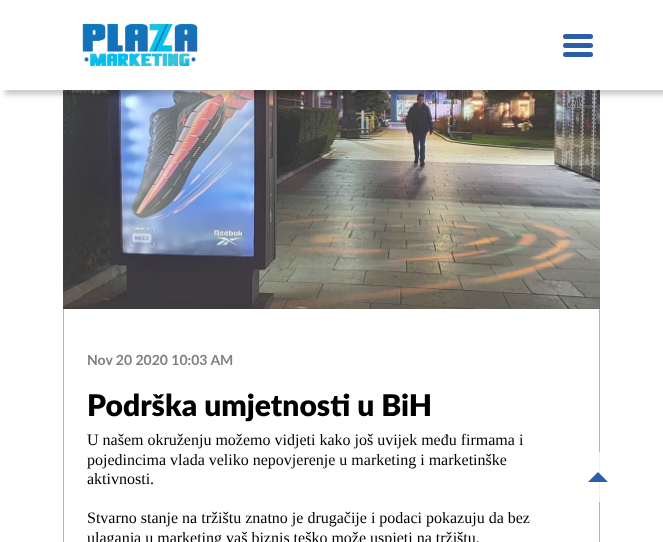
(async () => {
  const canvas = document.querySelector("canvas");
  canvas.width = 663;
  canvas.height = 542;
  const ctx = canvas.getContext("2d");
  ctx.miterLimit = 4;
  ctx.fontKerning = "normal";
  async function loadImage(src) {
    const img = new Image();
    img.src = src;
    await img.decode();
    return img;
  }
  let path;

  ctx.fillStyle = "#ffffff";
  ctx.fillRect(0, 0, 663, 542);
  ctx.drawImage(await loadImage("img/2.png"), 63, 90, 537, 219);
  ctx.fillStyle = "rgba(0, 0, 0, 0.2)";
  ctx.filter = "blur(2.5px)";
  ctx.beginPath();
  ctx.rect(5, 5, 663, 90);
  ctx.fill();
  ctx.filter = "none";
  ctx.fillStyle = "#ffffff";
  ctx.fillRect(1, 1, 662, 89);
  ctx.drawImage(await loadImage("img/1.png"), 82, 23, 116, 44);
  ctx.fillStyle = "#2a5eaa";
  ctx.beginPath();
  ctx.roundRect(563, 34, 30, 5, 2.5);
  ctx.fill();
  ctx.beginPath();
  ctx.roundRect(563, 43, 30, 5, 2.5);
  ctx.fill();
  ctx.beginPath();
  ctx.roundRect(563, 52, 30, 5, 2.5);
  ctx.fill();
  for (const [x, y, w, h, color] of [
    [599, 309, 1, 233, "#b3b3b3"],
    [599, 452, 1, 50, "#f0f0f0"],
    [63, 309, 1, 233, "#b3b3b3"],
  ]) {
    ctx.fillStyle = color;
    ctx.fillRect(x, y, w, h);
  }
  ctx.fillStyle = "#2a5eaa";
  path = new Path2D("M608 482H588L598 472Z");
  ctx.fill(path);
  ctx.font = "bold 14px Lato";
  ctx.fillStyle = "#808080";
  ctx.fillText("Nov 20 2020 10:03 AM", 87, 365);
  ctx.font = "900 30px Lato";
  ctx.fillStyle = "#000000";
  ctx.fillText("Podrška umjetnosti u BiH", 87, 416);
  ctx.font = "16px Liberation Serif";
  for (const [text, x, y] of [
    ["U našem okruženju možemo vidjeti kako još uvijek među firmama i", 87, 445],
    ["pojedincima vlada veliko nepovjerenje u marketing i marketinške", 87, 465],
    ["aktivnosti.", 87, 484],
    ["Stvarno stanje na tržištu znatno je drugačije i podaci pokazuju da bez", 87, 523],
    ["ulaganja u marketing vaš biznis teško može uspjeti na tržištu.", 87, 543],
  ]) {
    ctx.fillText(text, x, y);
  }
})();
